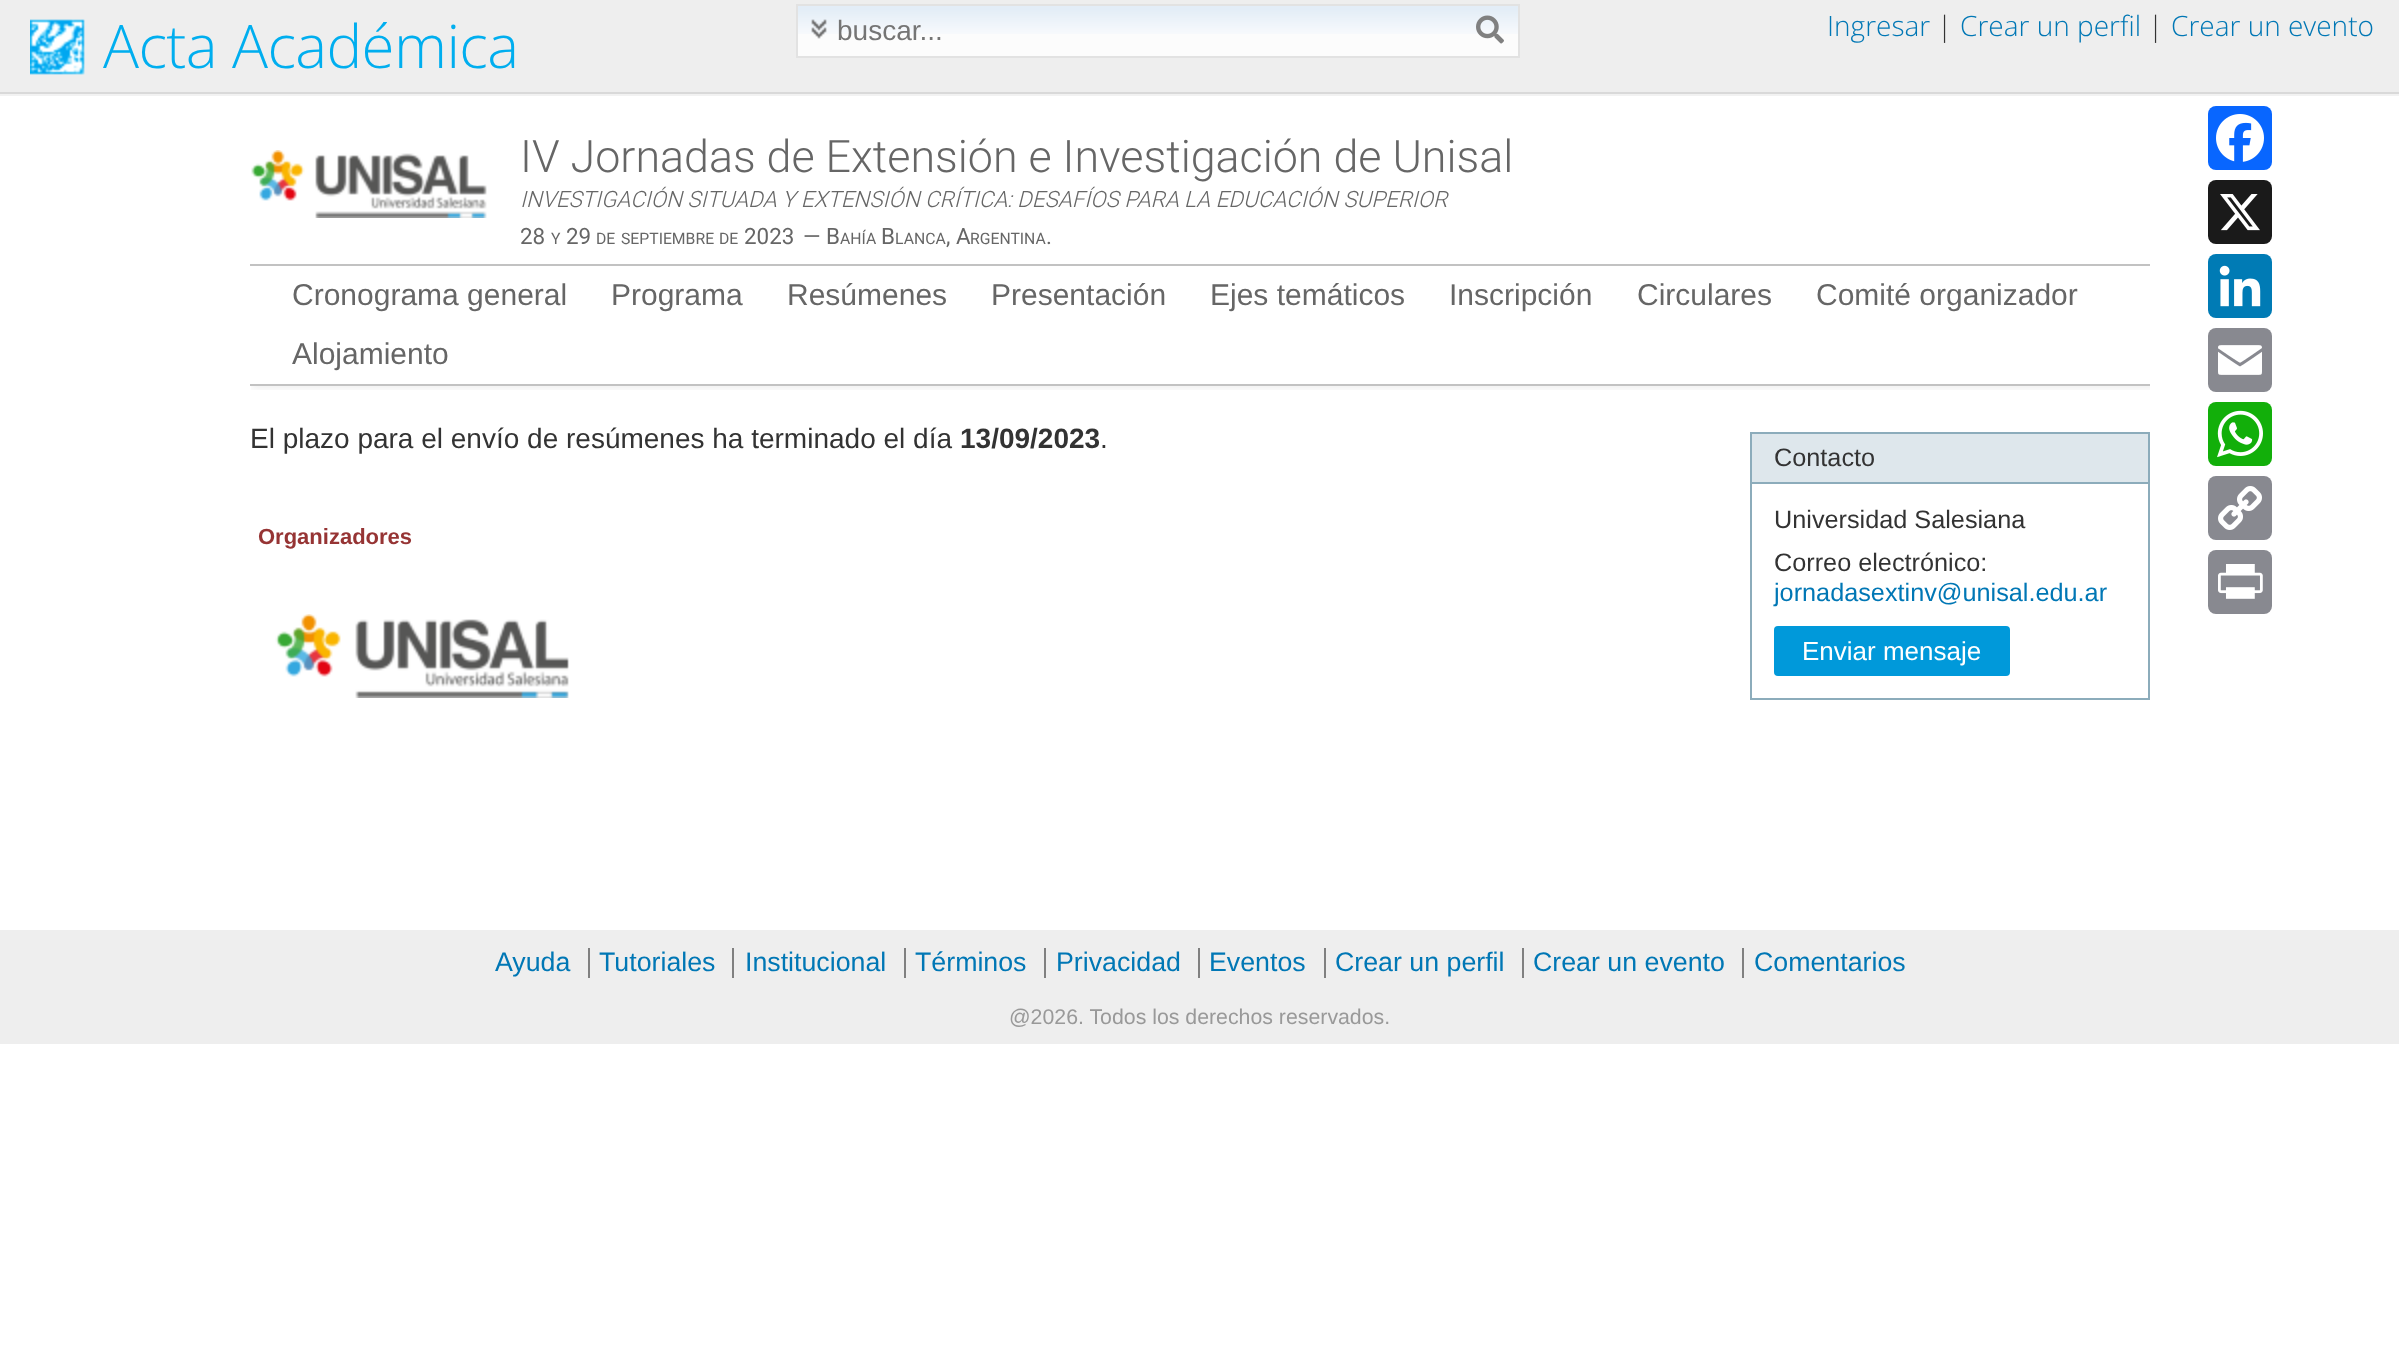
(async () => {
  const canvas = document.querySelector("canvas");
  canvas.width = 2399;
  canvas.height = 1345;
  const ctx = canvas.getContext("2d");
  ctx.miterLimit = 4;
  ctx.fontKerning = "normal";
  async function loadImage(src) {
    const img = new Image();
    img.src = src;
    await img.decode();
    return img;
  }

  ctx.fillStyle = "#ffffff";
  ctx.fillRect(0, 0, 2399, 1345);
  for (const [x, y, w, h, color] of [
    [0, 94, 2399, 2, "#f2f2f2"],
    [0, 92, 2399, 2, "#d9d9d9"],
    [0, 0, 2399, 92, "#eeeeee"],
  ]) {
    ctx.fillStyle = color;
    ctx.fillRect(x, y, w, h);
  }
  ctx.drawImage(await loadImage("img/1.png"), 30, 19, 55, 56);
  ctx.fillStyle = "#fcfcfc";
  ctx.fillRect(798, 34, 720, 22);
  ctx.drawImage(await loadImage("img/3.png"), 798, 6, 720, 28);
  ctx.strokeStyle = "#e2e2e2";
  ctx.lineWidth = 2;
  ctx.strokeRect(797, 5, 722, 52);
  ctx.drawImage(await loadImage("img/2.png"), 811, 19, 16, 20);
  ctx.drawImage(await loadImage("img/4.png"), 1476, 15, 28, 29);
  ctx.drawImage(await loadImage("img/5.png"), 251, 150, 236, 68);
  ctx.save();
  ctx.beginPath();
  ctx.rect(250, 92, 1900, 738);
  ctx.clip();
  ctx.beginPath();
  ctx.rect(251, 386, 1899, 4);
  ctx.clip();
  ctx.fillStyle = "rgba(0, 0, 0, 0.07)";
  ctx.filter = "blur(4px)";
  ctx.beginPath();
  ctx.rect(252, 266, 1942, 122);
  ctx.fill();
  ctx.filter = "none";
  ctx.restore();
  ctx.fillStyle = "#c2c2c2";
  ctx.fillRect(250, 264, 1900, 2);
  ctx.fillRect(250, 384, 1900, 2);
  ctx.drawImage(await loadImage("img/6.png"), 275, 614, 294, 84);
  ctx.fillStyle = "#8cacbb";
  ctx.fillRect(1750, 698, 400, 2);
  ctx.fillStyle = "#dee7ec";
  ctx.beginPath();
  ctx.rect(1751, 433, 398, 50);
  ctx.fill();
  ctx.strokeStyle = "#8cacbb";
  ctx.stroke();
  ctx.fillStyle = "#8cacbb";
  ctx.fillRect(2148, 484, 2, 214);
  ctx.fillRect(1750, 484, 2, 214);
  ctx.fillStyle = "#0099da";
  ctx.beginPath();
  ctx.roundRect(1774, 626, 236, 50, 4);
  ctx.fill();
  ctx.fillStyle = "#0866ff";
  ctx.beginPath();
  ctx.roundRect(2208, 106, 64, 64, 8);
  ctx.fill();
  ctx.drawImage(await loadImage("img/7.png"), 2216, 114, 48, 48);
  ctx.fillStyle = "#1a1a1a";
  ctx.beginPath();
  ctx.roundRect(2208, 180, 64, 64, 8);
  ctx.fill();
  ctx.drawImage(await loadImage("img/8.png"), 2220, 194, 40, 37);
  ctx.fillStyle = "#007bb5";
  ctx.beginPath();
  ctx.roundRect(2208, 254, 64, 64, 8);
  ctx.fill();
  ctx.drawImage(await loadImage("img/9.png"), 2219, 265, 42, 42);
  ctx.fillStyle = "#888990";
  ctx.beginPath();
  ctx.roundRect(2208, 328, 64, 64, 8);
  ctx.fill();
  ctx.drawImage(await loadImage("img/10.png"), 2218, 345, 44, 30);
  ctx.fillStyle = "#12af0a";
  ctx.beginPath();
  ctx.roundRect(2208, 402, 64, 64, 8);
  ctx.fill();
  ctx.drawImage(await loadImage("img/11.png"), 2217, 410, 46, 48);
  ctx.fillStyle = "#888990";
  ctx.beginPath();
  ctx.roundRect(2208, 476, 64, 64, 8);
  ctx.fill();
  ctx.drawImage(await loadImage("img/12.png"), 2218, 486, 44, 44);
  ctx.beginPath();
  ctx.roundRect(2208, 550, 64, 64, 8);
  ctx.fill();
  ctx.drawImage(await loadImage("img/13.png"), 2218, 564, 45, 35);
  for (const [x, y, w, h, color] of [
    [0, 930, 2399, 114, "#eeeeee"],
    [588, 948, 2, 30, "#808080"],
    [732, 948, 2, 30, "#808080"],
    [904, 948, 2, 30, "#808080"],
    [1044, 948, 2, 30, "#808080"],
    [1198, 948, 2, 30, "#808080"],
    [1324, 948, 2, 30, "#808080"],
    [1522, 948, 2, 30, "#808080"],
    [1742, 948, 2, 30, "#808080"],
  ]) {
    ctx.fillStyle = color;
    ctx.fillRect(x, y, w, h);
  }
  ctx.letterSpacing = "-0.6px";
  ctx.font = "300 60px Open Sans";
  ctx.fillStyle = "#00aeef";
  ctx.fillText("Acta Académica", 103, 68);
  ctx.letterSpacing = "0px";
  ctx.font = "28px Liberation Sans";
  ctx.fillStyle = "#757575";
  ctx.fillText("buscar...", 837, 40);
  ctx.font = "300 28px Open Sans";
  ctx.fillStyle = "#0077b5";
  ctx.fillText("Ingresar", 1827, 36);
  ctx.fillStyle = "#333333";
  ctx.fillText("|", 1937, 36);
  ctx.fillStyle = "#0077b5";
  ctx.fillText("Crear un perfil", 1960, 36);
  ctx.fillStyle = "#333333";
  ctx.fillText("|", 2148, 36);
  ctx.fillStyle = "#0077b5";
  ctx.fillText("Crear un evento", 2171, 36);
  ctx.font = "300 44.8px Roboto";
  ctx.fillStyle = "#666666";
  ctx.fillText("IV Jornadas de Extensión e Investigación de Unisal", 520, 172);
  ctx.font = "italic 300 22.4px Roboto";
  ctx.fillText("INVESTIGACIÓN SITUADA Y EXTENSIÓN CRÍTICA:", 520, 207);
  ctx.fillText("DESAFÍOS PARA LA EDUCACIÓN SUPERIOR", 1017, 207);
  ctx.font = "22.4px Roboto";
  ctx.fillText("28", 520, 244);
  ctx.font = "15.75px Roboto";
  ctx.fillText("Y", 551, 244);
  ctx.font = "22.4px Roboto";
  ctx.fillText("29", 566, 244);
  ctx.font = "15.75px Roboto";
  for (const [text, x, y] of [
    ["DE", 596, 244],
    ["SEPTIEMBRE", 621, 244],
    ["DE", 719, 244],
  ]) {
    ctx.fillText(text, x, y);
  }
  ctx.font = "22.4px Roboto";
  ctx.fillText("2023", 744, 244);
  ctx.fillText("— B", 803, 244);
  ctx.font = "15.75px Roboto";
  ctx.fillText("AHÍA", 840, 244);
  ctx.font = "22.4px Roboto";
  ctx.fillText("B", 881, 244);
  ctx.font = "15.75px Roboto";
  ctx.fillText("LANCA", 895, 244);
  ctx.font = "22.4px Roboto";
  ctx.fillText(", A", 946, 244);
  ctx.font = "15.75px Roboto";
  ctx.fillText("RGENTINA", 970, 244);
  ctx.font = "22.4px Roboto";
  ctx.fillText(".", 1046, 244);
  ctx.font = "30px Liberation Sans";
  for (const [text, x, y] of [
    ["Cronograma general", 292, 305],
    ["Programa", 611, 305],
    ["Resúmenes", 787, 305],
    ["Presentación", 991, 305],
    ["Ejes temáticos", 1210, 305],
    ["Inscripción", 1449, 305],
    ["Circulares", 1637, 305],
    ["Comité organizador", 1816, 305],
    ["Alojamiento", 292, 364],
  ]) {
    ctx.fillText(text, x, y);
  }
  ctx.font = "28px Liberation Sans";
  ctx.fillStyle = "#333333";
  ctx.fillText("El plazo para el envío de resúmenes ha terminado el día", 250, 448);
  ctx.font = "bold 28px Liberation Sans";
  ctx.fillText("13/09/2023", 960, 448);
  ctx.font = "28px Liberation Sans";
  ctx.fillText(".", 1100, 448);
  ctx.font = "bold 22px Liberation Sans";
  ctx.fillStyle = "#963434";
  ctx.fillText("Organizadores", 258, 544);
  ctx.font = "25.25px Liberation Sans";
  ctx.fillStyle = "#333333";
  for (const [text, x, y] of [
    ["Contacto", 1774, 466],
    ["Universidad Salesiana", 1774, 528],
    ["Correo electrónico:", 1774, 571],
  ]) {
    ctx.fillText(text, x, y);
  }
  ctx.fillStyle = "#0077b5";
  ctx.fillText("jornadasextinv@unisal.edu.ar", 1774, 601);
  ctx.font = "26px Liberation Sans";
  ctx.fillStyle = "#ffffff";
  ctx.fillText("Enviar mensaje", 1802, 660);
  ctx.font = "26.75px Liberation Sans";
  ctx.fillStyle = "#0077b5";
  for (const [text, x, y] of [
    ["Ayuda", 495, 971],
    ["Tutoriales", 599, 971],
    ["Institucional", 745, 971],
    ["Términos", 915, 971],
    ["Privacidad", 1056, 971],
    ["Eventos", 1209, 971],
    ["Crear un perfil", 1335, 971],
    ["Crear un evento", 1533, 971],
    ["Comentarios", 1754, 971],
  ]) {
    ctx.fillText(text, x, y);
  }
  ctx.font = "21.3px Liberation Sans";
  ctx.fillStyle = "#999999";
  ctx.fillText("@2026. Todos los derechos reservados.", 1009, 1024);
})();
